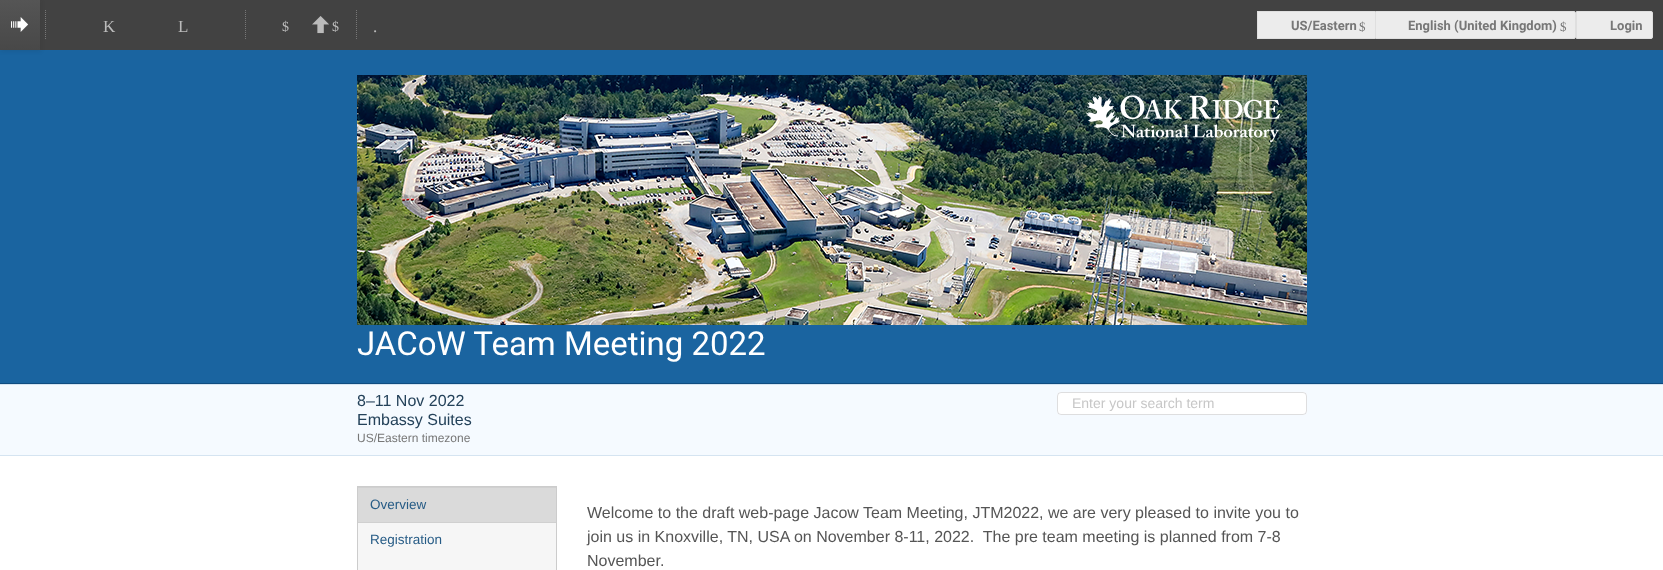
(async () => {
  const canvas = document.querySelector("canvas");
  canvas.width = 1663;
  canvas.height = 570;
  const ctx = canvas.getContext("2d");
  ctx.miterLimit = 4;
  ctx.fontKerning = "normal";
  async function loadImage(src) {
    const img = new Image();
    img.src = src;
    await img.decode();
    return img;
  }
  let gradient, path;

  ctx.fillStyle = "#ffffff";
  ctx.fillRect(0, 0, 1663, 570);
  ctx.fillStyle = "#424242";
  ctx.fillRect(40, 0, 1623, 50);
  ctx.fillStyle = "#1a64a0";
  ctx.fillRect(0, 50, 1663, 333);
  ctx.fillStyle = "rgba(20, 20, 20, 0.1)";
  ctx.filter = "blur(2px)";
  ctx.beginPath();
  ctx.rect(1, 1, 40, 50);
  ctx.fill();
  ctx.filter = "none";
  gradient = ctx.createLinearGradient(20, 0, 20, 50);
  gradient.addColorStop(0, "#555555");
  gradient.addColorStop(1, "#484848");
  ctx.fillStyle = gradient;
  ctx.fillRect(0, 0, 40, 50);
  ctx.drawImage(await loadImage("img/1.png"), 11, 17, 18, 15);
  path = new Path2D("M45.5 10V40");
  ctx.strokeStyle = "#777777";
  ctx.setLineDash([1, 1]);
  ctx.stroke(path);
  path = new Path2D("M245.5 10V40");
  ctx.stroke(path);
  ctx.drawImage(await loadImage("img/2.png"), 312, 16, 17, 18);
  path = new Path2D("M356.5 10V40");
  ctx.stroke(path);
  for (const [x, y, w, h, color] of [
    [1258, 12, 117, 26, "#ececec"],
    [1257, 11, 118, 1, "#dfdfdf"],
    [1257, 38, 118, 1, "#dfdfdf"],
    [1257, 11, 1, 28, "#dfdfdf"],
  ]) {
    ctx.fillStyle = color;
    ctx.fillRect(x, y, w, h);
  }
  ctx.fillStyle = "#ececec";
  ctx.beginPath();
  ctx.roundRect(1375.5, 11.5, 200, 27, [0, 1.5, 1.5, 0]);
  ctx.fill();
  ctx.strokeStyle = "#dfdfdf";
  ctx.setLineDash([]);
  ctx.stroke();
  ctx.beginPath();
  ctx.roundRect(1576.5, 11.5, 76, 27, [0, 1.5, 1.5, 0]);
  ctx.fill();
  ctx.stroke();
  ctx.fillStyle = "#0f4c80";
  ctx.fillRect(0, 383, 1663, 1);
  ctx.drawImage(await loadImage("img/3.png"), 357, 75, 950, 250);
  for (const [x, y, w, h, color] of [
    [0, 385, 1663, 70, "#f5faff"],
    [0, 384, 1663, 1, "#d5e4f1"],
    [0, 455, 1663, 1, "#d5e4f1"],
  ]) {
    ctx.fillStyle = color;
    ctx.fillRect(x, y, w, h);
  }
  ctx.fillStyle = "#ffffff";
  ctx.beginPath();
  ctx.roundRect(1057, 392, 250, 23, 4);
  ctx.fill();
  ctx.beginPath();
  ctx.roundRect(1057.5, 392.5, 249, 22, 3.5);
  ctx.strokeStyle = "rgba(34, 36, 38, 0.15)";
  ctx.stroke();
  ctx.fillStyle = "#f6f6f6";
  ctx.fillRect(358, 523, 198, 47);
  ctx.strokeStyle = "#cccccc";
  ctx.strokeRect(357.5, 486.5, 199, 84);
  for (const [x, y, w, h, color] of [
    [358, 488, 198, 34, "#dadada"],
    [358, 487, 198, 1, "#d0d0d0"],
    [358, 522, 198, 1, "#d0d0d0"],
  ]) {
    ctx.fillStyle = color;
    ctx.fillRect(x, y, w, h);
  }
  ctx.font = "17px Liberation Serif";
  ctx.fillStyle = "#bbbbbb";
  ctx.fillText("K", 103, 32);
  ctx.fillText("L", 178, 32);
  ctx.font = "14px Liberation Serif";
  ctx.fillText("$", 282, 31);
  ctx.fillText("$", 332, 31);
  ctx.font = "17px Liberation Serif";
  ctx.fillText(".", 373, 32);
  ctx.font = "bold 13px Roboto";
  ctx.fillStyle = "#777777";
  ctx.fillText("US/Eastern", 1291, 30);
  ctx.font = "13px Liberation Serif";
  ctx.fillText("$", 1359, 31);
  ctx.font = "bold 13px Roboto";
  ctx.fillText("English (United Kingdom)", 1408, 30);
  ctx.font = "13px Liberation Serif";
  ctx.fillText("$", 1560, 31);
  ctx.font = "bold 13px Roboto";
  ctx.fillText("Login", 1610, 30);
  ctx.font = "33px Roboto";
  ctx.fillStyle = "#ffffff";
  ctx.fillText("JACoW Team Meeting 2022", 357, 355);
  ctx.font = "16px 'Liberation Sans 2'";
  ctx.fillStyle = "#24425a";
  ctx.fillText("8–11 Nov 2022", 357, 406);
  ctx.fillText("Embassy Suites", 357, 425);
  ctx.font = "12px 'Liberation Sans 2'";
  ctx.fillStyle = "#777777";
  ctx.fillText("US/Eastern timezone", 357, 442);
  ctx.font = "14px Liberation Sans";
  ctx.fillStyle = "#c7c7c7";
  ctx.fillText("Enter your search term", 1072, 408);
  ctx.font = "13.5px Liberation Sans";
  ctx.fillStyle = "#275c86";
  ctx.fillText("Overview", 370, 509);
  ctx.fillText("Registration", 370, 544);
  ctx.font = "16px Liberation Sans";
  ctx.fillStyle = "#555555";
  for (const [text, x, y] of [
    ["Welcome to the draft web-page Jacow Team Meeting, JTM2022, we are very pleased to invite you to", 587, 518],
    ["join us in Knoxville, TN, USA on November 8-11, 2022.  The pre team meeting is planned from 7-8", 587, 542],
    ["November.", 587, 566],
  ]) {
    ctx.fillText(text, x, y);
  }
})();
